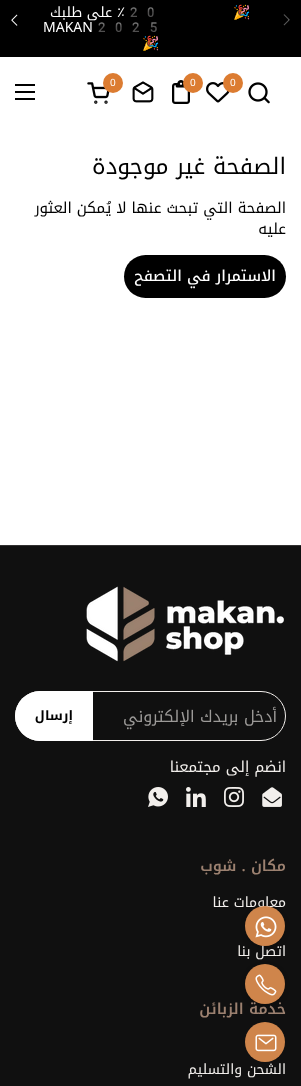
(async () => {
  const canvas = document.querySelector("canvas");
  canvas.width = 301;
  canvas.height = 1086;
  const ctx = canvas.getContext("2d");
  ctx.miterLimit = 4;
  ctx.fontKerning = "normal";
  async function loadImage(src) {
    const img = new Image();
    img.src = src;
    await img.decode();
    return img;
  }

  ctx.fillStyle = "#ffffff";
  ctx.fillRect(0, 0, 301, 1086);
  ctx.fillStyle = "#000000";
  ctx.fillRect(0, 0, 301, 57);
  ctx.drawImage(await loadImage("img/1.png"), 283, 14, 7, 12);
  ctx.drawImage(await loadImage("img/2.png"), 11, 14, 7, 12);
  ctx.drawImage(await loadImage("img/3.png"), 248, 82, 22, 22);
  ctx.drawImage(await loadImage("img/4.png"), 206, 82, 24, 21);
  ctx.fillStyle = "#dc7c31";
  ctx.beginPath();
  ctx.arc(233, 83, 10, 0, Math.PI * 2);
  ctx.fill();
  ctx.drawImage(await loadImage("img/5.png"), 172, 80, 18, 24);
  ctx.beginPath();
  ctx.arc(193, 83, 10, 0, Math.PI * 2);
  ctx.fill();
  ctx.drawImage(await loadImage("img/6.png"), 132, 81, 22, 22);
  ctx.drawImage(await loadImage("img/7.png"), 87, 82, 23, 22);
  ctx.beginPath();
  ctx.arc(113, 83, 10, 0, Math.PI * 2);
  ctx.fill();
  for (const [x, y, w, h, color] of [
    [15, 84, 20, 2, "#000000"],
    [15, 91, 20, 2, "#000000"],
    [15, 98, 20, 2, "#000000"],
  ]) {
    ctx.fillStyle = color;
    ctx.fillRect(x, y, w, h);
  }
  ctx.beginPath();
  ctx.roundRect(124, 255, 162, 43, 21.5);
  ctx.fill();
  ctx.fillStyle = "#101010";
  ctx.fillRect(0, 546, 301, 540);
  ctx.fillStyle = "#323131";
  ctx.fillRect(0, 545, 301, 1);
  ctx.drawImage(await loadImage("img/8.png"), 86, 586, 198, 76);
  ctx.beginPath();
  ctx.roundRect(15.5, 691.5, 270, 49, 24.5);
  ctx.strokeStyle = "#f2efec";
  ctx.stroke();
  ctx.fillStyle = "#ffffff";
  ctx.beginPath();
  ctx.roundRect(15, 691, 78, 50, [25, 0, 0, 25]);
  ctx.fill();
  ctx.drawImage(await loadImage("img/9.png"), 262, 787, 20, 20);
  ctx.drawImage(await loadImage("img/10.png"), 224, 787, 20, 20);
  ctx.drawImage(await loadImage("img/11.png"), 186, 787, 20, 20);
  ctx.drawImage(await loadImage("img/12.png"), 148, 787, 20, 20);
  ctx.fillStyle = "rgba(0, 0, 0, 0.2)";
  ctx.filter = "blur(2.5px)";
  ctx.beginPath();
  ctx.roundRect(245, 908, 40, 40, 20);
  ctx.fill();
  ctx.filter = "none";
  ctx.filter = "blur(2.5px)";
  ctx.beginPath();
  ctx.roundRect(245, 966, 40, 40, 20);
  ctx.fill();
  ctx.filter = "none";
  ctx.fillStyle = "#cf854b";
  ctx.beginPath();
  ctx.arc(265, 1042, 20, 0, Math.PI * 2);
  ctx.fill();
  ctx.drawImage(await loadImage("img/15.png"), 255, 1034, 22, 18);
  ctx.direction = "rtl";
  ctx.font = "14px Noto Color Emoji";
  ctx.fillStyle = "#ffffff";
  ctx.fillText("🎉", 251, 17);
  ctx.direction = "ltr";
  ctx.fillText("20", 125, 17);
  ctx.direction = "rtl";
  ctx.font = "14px Noto Kufi Arabic";
  ctx.fillText("٪ على طلبك", 125, 17);
  ctx.direction = "ltr";
  ctx.font = "14px Noto Color Emoji";
  ctx.fillText("2025", 93, 32);
  ctx.font = "14px Noto Kufi Arabic";
  ctx.fillText("MAKAN", 43, 32);
  ctx.font = "14px Noto Color Emoji";
  ctx.fillText("🎉", 142, 48);
  ctx.font = "10px Noto Kufi Arabic";
  for (const [text, x, y] of [
    ["0", 230, 86],
    ["0", 190, 86],
    ["0", 110, 86],
  ]) {
    ctx.fillText(text, x, y);
  }
  ctx.direction = "rtl";
  ctx.font = "22.75px Noto Kufi Arabic";
  ctx.fillStyle = "#000000";
  ctx.fillText("الصفحة غير موجودة", 286, 174);
  ctx.font = "15px Noto Kufi Arabic";
  ctx.fillText("الصفحة التي تبحث عنها لا يُمكن العثور", 286, 213);
  ctx.fillText("عليه", 286, 234);
  ctx.font = "500 15px Noto Kufi Arabic";
  ctx.fillStyle = "#ffffff";
  ctx.fillText("الاستمرار في التصفح", 276, 281);
  ctx.font = "16px Noto Kufi Arabic";
  ctx.fillStyle = "#9c9a98";
  ctx.fillText("أدخل بريدك الإلكتروني", 277, 722);
  ctx.font = "bold 13px Noto Kufi Arabic";
  ctx.fillStyle = "#000000";
  ctx.fillText("إرسال", 73, 720);
  ctx.font = "15px Noto Kufi Arabic";
  ctx.fillStyle = "#f2efec";
  ctx.fillText("انضم إلى مجتمعنا", 286, 772);
  ctx.font = "600 15px Noto Kufi Arabic";
  ctx.fillStyle = "#9c8170";
  ctx.fillText("مكان . شوب", 286, 871);
  ctx.font = "14px Noto Kufi Arabic";
  ctx.fillStyle = "#f2efec";
  ctx.fillText("معلومات عنا", 286, 907);
  ctx.fillText("اتصل بنا", 286, 956);
  ctx.font = "600 15px Noto Kufi Arabic";
  ctx.fillStyle = "#9c8170";
  ctx.fillText("خدمة الزبائن", 286, 1014);
  ctx.font = "14px Noto Kufi Arabic";
  ctx.fillStyle = "#f2efec";
  ctx.fillText("الشحن والتسليم", 286, 1074);
  ctx.fillStyle = "#cf854b";
  ctx.beginPath();
  ctx.arc(265, 926, 20, 0, Math.PI * 2);
  ctx.fill();
  ctx.drawImage(await loadImage("img/13.png"), 255, 916, 22, 22);
  ctx.beginPath();
  ctx.arc(265, 984, 20, 0, Math.PI * 2);
  ctx.fill();
  ctx.drawImage(await loadImage("img/14.png"), 255, 974, 22, 22);
})();
